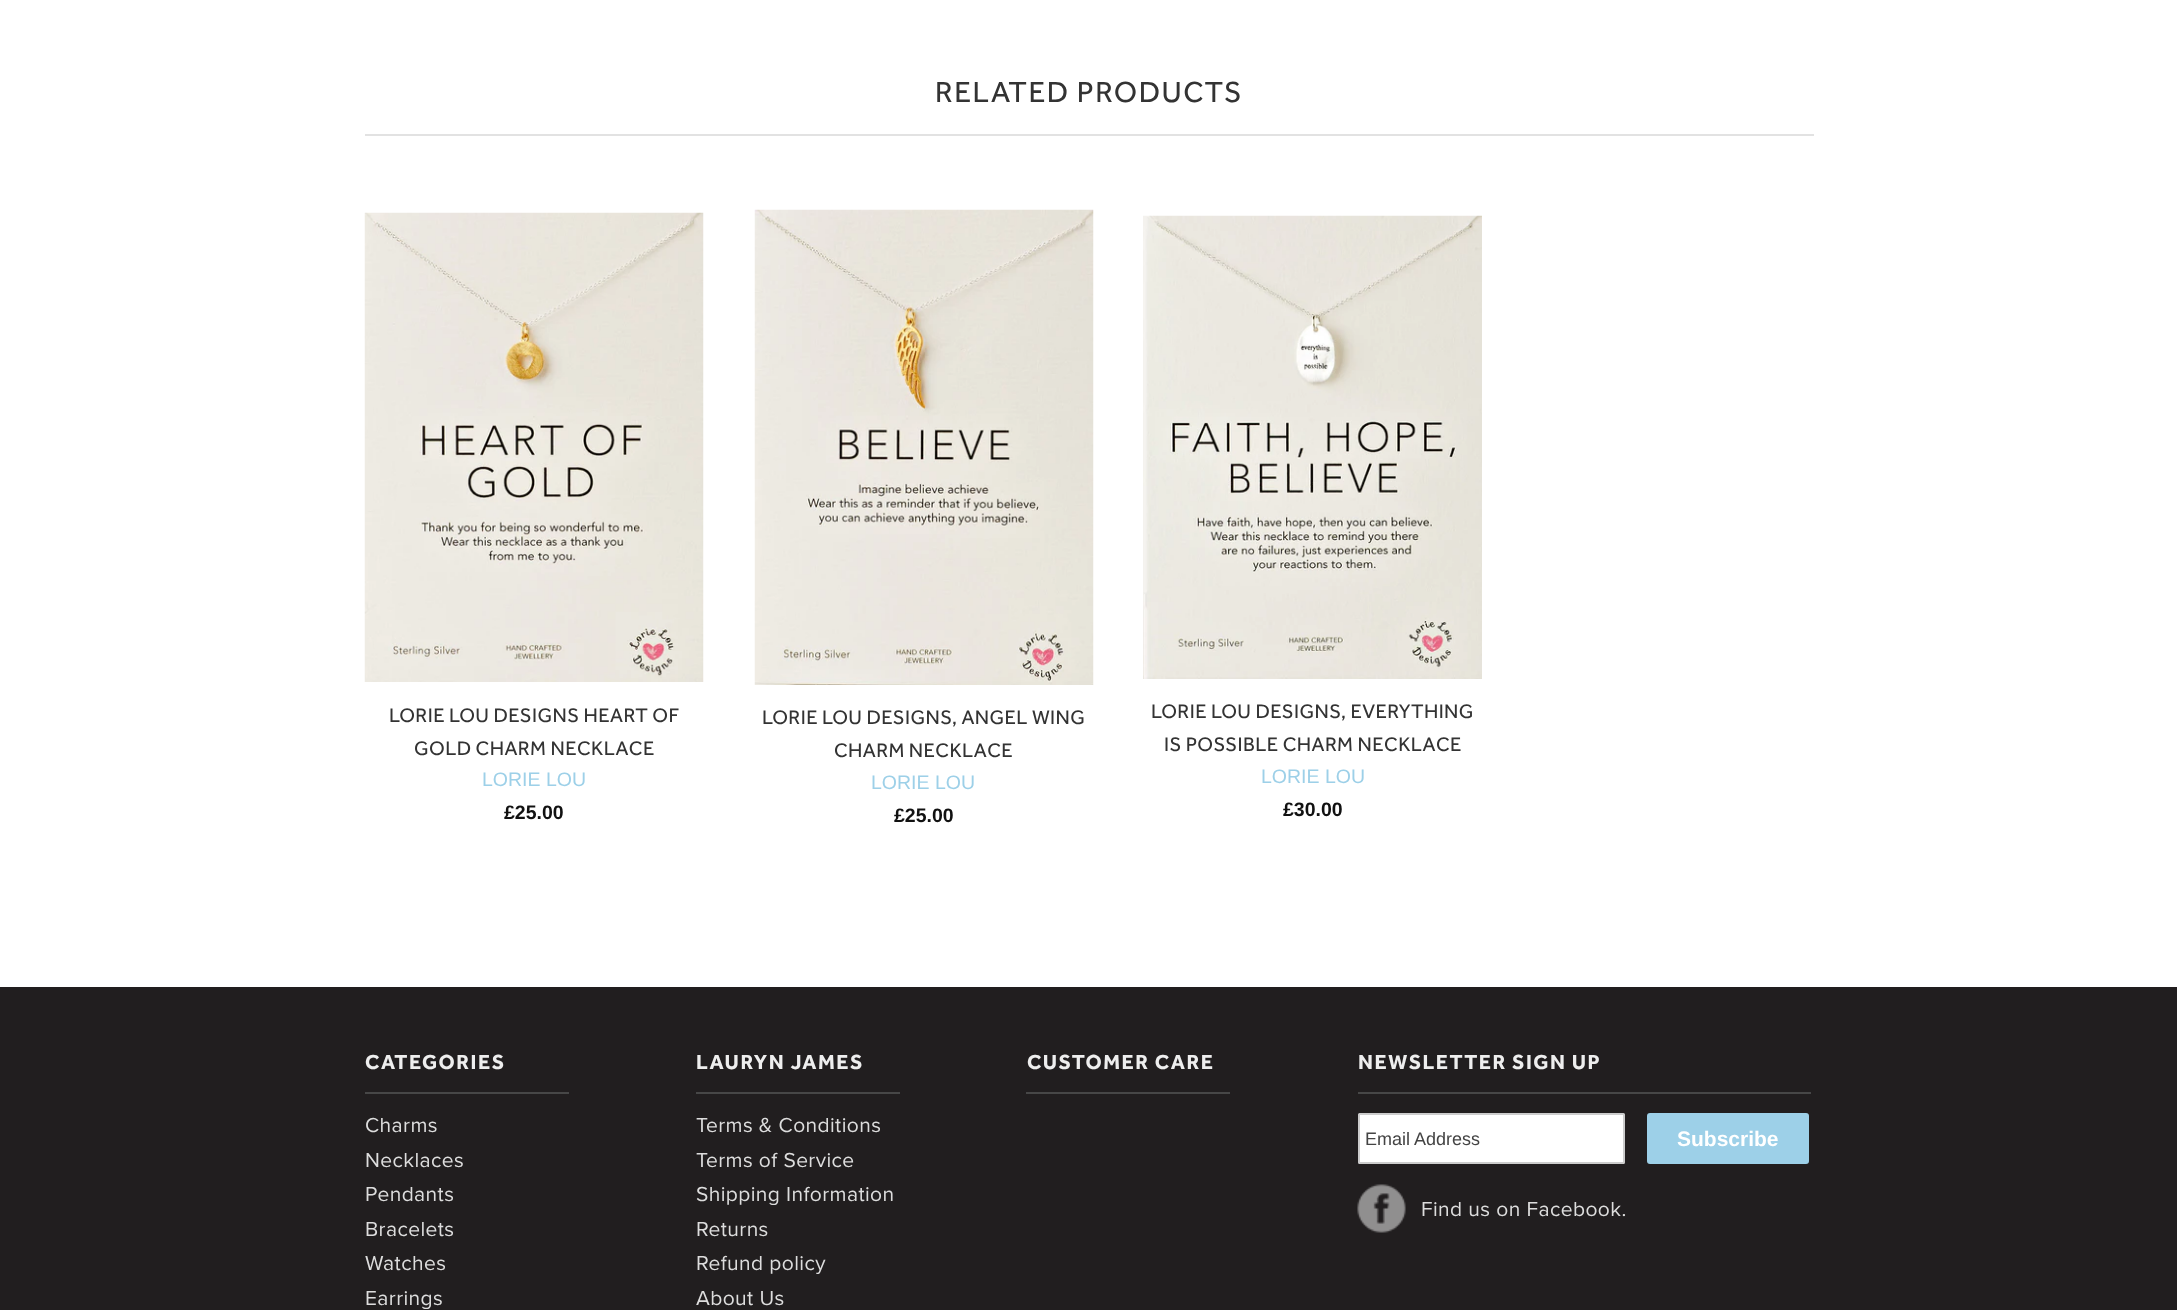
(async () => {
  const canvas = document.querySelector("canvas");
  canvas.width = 2177;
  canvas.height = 1310;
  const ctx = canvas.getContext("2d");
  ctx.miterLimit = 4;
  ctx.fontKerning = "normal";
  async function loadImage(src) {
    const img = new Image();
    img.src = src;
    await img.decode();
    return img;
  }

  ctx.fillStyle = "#ffffff";
  ctx.fillRect(0, 0, 2177, 1310);
  ctx.fillStyle = "#e2e2e2";
  ctx.fillRect(365, 134, 1449, 2);
  ctx.drawImage(await loadImage("img/1.png"), 364, 212, 340, 470);
  ctx.drawImage(await loadImage("img/2.png"), 754, 209, 340, 476);
  ctx.drawImage(await loadImage("img/3.png"), 1143, 215, 339, 464);
  for (const [x, y, w, h, color] of [
    [0, 987, 2177, 323, "#211e1f"],
    [365, 1092, 204, 2, "#474747"],
    [696, 1092, 204, 2, "#474747"],
    [1026, 1092, 204, 2, "#474747"],
    [1358, 1092, 453, 2, "#474747"],
  ]) {
    ctx.fillStyle = color;
    ctx.fillRect(x, y, w, h);
  }
  ctx.fillStyle = "#ffffff";
  ctx.beginPath();
  ctx.roundRect(1359, 1114, 265, 49, 0.5);
  ctx.fill();
  ctx.strokeStyle = "#cccccc";
  ctx.lineWidth = 2;
  ctx.stroke();
  ctx.fillStyle = "#9dd0e8";
  ctx.beginPath();
  ctx.roundRect(1647, 1113, 162, 51, 3);
  ctx.fill();
  ctx.drawImage(await loadImage("img/4.png"), 1357, 1184, 49, 49);
  ctx.letterSpacing = "1.5px";
  ctx.font = "30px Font";
  ctx.fillStyle = "#333333";
  ctx.fillText("RELATED PRODUCTS", 935, 102);
  ctx.letterSpacing = "0.4px";
  ctx.font = "20.25px Font";
  ctx.fillText("LORIE LOU DESIGNS HEART OF", 389, 722);
  ctx.fillText("GOLD CHARM NECKLACE", 414, 755);
  ctx.letterSpacing = "0px";
  ctx.font = "19.5px Liberation Sans";
  ctx.fillStyle = "#9dd0e8";
  ctx.fillText("LORIE LOU", 482, 786);
  ctx.font = "bold 19.5px Liberation Sans";
  ctx.fillStyle = "#111111";
  ctx.fillText("£25.00", 504, 819);
  ctx.letterSpacing = "0.4px";
  ctx.font = "20.25px Font";
  ctx.fillStyle = "#333333";
  ctx.fillText("LORIE LOU DESIGNS, ANGEL WING", 762, 724);
  ctx.fillText("CHARM NECKLACE", 834, 757);
  ctx.letterSpacing = "0px";
  ctx.font = "19.5px Liberation Sans";
  ctx.fillStyle = "#9dd0e8";
  ctx.fillText("LORIE LOU", 871, 789);
  ctx.font = "bold 19.5px Liberation Sans";
  ctx.fillStyle = "#111111";
  ctx.fillText("£25.00", 894, 822);
  ctx.letterSpacing = "0.4px";
  ctx.font = "20.25px Font";
  ctx.fillStyle = "#333333";
  ctx.fillText("LORIE LOU DESIGNS, EVERYTHING", 1151, 718);
  ctx.fillText("IS POSSIBLE CHARM NECKLACE", 1164, 751);
  ctx.letterSpacing = "0px";
  ctx.font = "19.5px Liberation Sans";
  ctx.fillStyle = "#9dd0e8";
  ctx.fillText("LORIE LOU", 1261, 783);
  ctx.font = "bold 19.5px Liberation Sans";
  ctx.fillStyle = "#111111";
  ctx.fillText("£30.00", 1283, 816);
  ctx.letterSpacing = "1.5px";
  ctx.font = "bold 21px Font";
  ctx.fillStyle = "#eeeeee";
  ctx.fillText("CATEGORIES", 365, 1069);
  ctx.letterSpacing = "0.4px";
  ctx.font = "21px Proxima Nova";
  ctx.fillStyle = "#dddddd";
  for (const [text, x, y] of [
    ["Charms", 365, 1132],
    ["Necklaces", 365, 1167],
    ["Pendants", 365, 1201],
    ["Bracelets", 365, 1236],
    ["Watches", 365, 1270],
    ["Earrings", 365, 1305],
  ]) {
    ctx.fillText(text, x, y);
  }
  ctx.letterSpacing = "1.5px";
  ctx.font = "bold 21px Font";
  ctx.fillStyle = "#eeeeee";
  ctx.fillText("LAURYN JAMES", 696, 1069);
  ctx.letterSpacing = "0.4px";
  ctx.font = "21px Proxima Nova";
  ctx.fillStyle = "#dddddd";
  for (const [text, x, y] of [
    ["Terms & Conditions", 696, 1132],
    ["Terms of Service", 696, 1167],
    ["Shipping Information", 696, 1201],
    ["Returns", 696, 1236],
    ["Refund policy", 696, 1270],
    ["About Us", 696, 1305],
  ]) {
    ctx.fillText(text, x, y);
  }
  ctx.letterSpacing = "1.5px";
  ctx.font = "bold 21px Font";
  ctx.fillStyle = "#eeeeee";
  ctx.fillText("CUSTOMER CARE", 1027, 1069);
  ctx.fillText("NEWSLETTER SIGN UP", 1358, 1069);
  ctx.letterSpacing = "0px";
  ctx.font = "18px Liberation Sans";
  ctx.fillStyle = "#444444";
  ctx.fillText("Email Address", 1365, 1145);
  ctx.font = "bold 21px Liberation Sans";
  ctx.fillStyle = "#ffffff";
  ctx.fillText("Subscribe", 1677, 1146);
  ctx.letterSpacing = "0.4px";
  ctx.font = "21px Proxima Nova";
  ctx.fillStyle = "#dddddd";
  ctx.fillText("Find us on Facebook.", 1421, 1216);
})();
